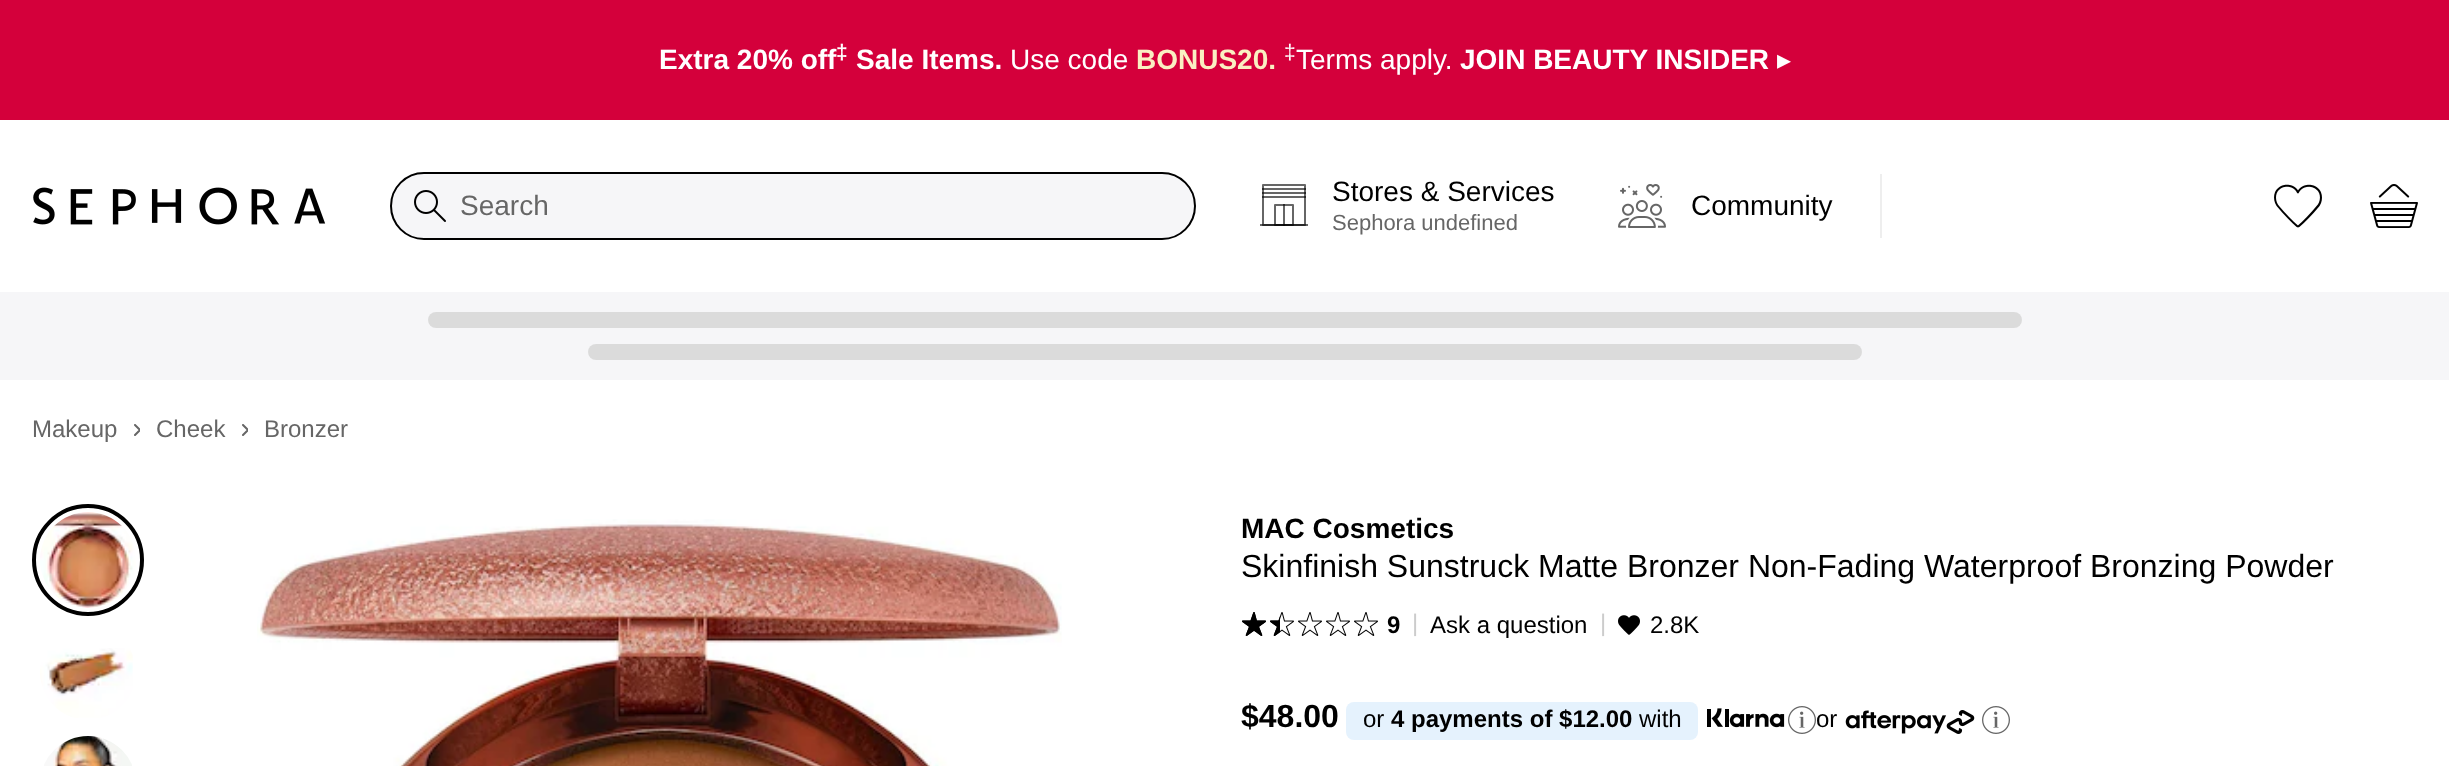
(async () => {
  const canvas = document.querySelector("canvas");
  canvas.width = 2449;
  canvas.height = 766;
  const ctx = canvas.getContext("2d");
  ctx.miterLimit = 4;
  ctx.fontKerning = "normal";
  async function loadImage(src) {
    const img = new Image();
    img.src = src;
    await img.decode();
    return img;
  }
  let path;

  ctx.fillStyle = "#ffffff";
  ctx.fillRect(0, 0, 2449, 766);
  ctx.fillStyle = "#d4003b";
  ctx.fillRect(0, 0, 2449, 120);
  ctx.drawImage(await loadImage("img/1.png"), 33, 187, 293, 38);
  ctx.fillStyle = "#f6f6f8";
  ctx.beginPath();
  ctx.roundRect(391, 173, 804, 66, 33);
  ctx.fill();
  ctx.strokeStyle = "#000000";
  ctx.lineWidth = 2;
  ctx.stroke();
  ctx.drawImage(await loadImage("img/2.png"), 414, 190, 32, 32);
  ctx.drawImage(await loadImage("img/3.png"), 1260, 184, 48, 42);
  ctx.drawImage(await loadImage("img/4.png"), 1618, 184, 48, 44);
  ctx.fillStyle = "#eeeeee";
  ctx.fillRect(1880, 174, 2, 64);
  ctx.drawImage(await loadImage("img/5.png"), 2274, 184, 48, 44);
  ctx.drawImage(await loadImage("img/6.png"), 2370, 184, 48, 44);
  ctx.fillStyle = "#f6f6f8";
  ctx.fillRect(0, 292, 2449, 88);
  ctx.fillStyle = "#ffffff";
  ctx.beginPath();
  ctx.roundRect(428, 312, 1594, 16, 8);
  ctx.fill();
  ctx.fillStyle = "rgba(0, 0, 0, 0.14)";
  ctx.beginPath();
  ctx.roundRect(428, 312, 1594, 16, 8);
  ctx.fill();
  ctx.fillStyle = "#ffffff";
  ctx.beginPath();
  ctx.roundRect(588, 344, 1274, 16, 8);
  ctx.fill();
  ctx.fillStyle = "rgba(0, 0, 0, 0.14)";
  ctx.beginPath();
  ctx.roundRect(588, 344, 1274, 16, 8);
  ctx.fill();
  ctx.save();
  ctx.beginPath();
  ctx.rect(134, 424, 6, 12);
  ctx.clip();
  path = new Path2D("M135 435L140 430L135 425");
  ctx.strokeStyle = "#666666";
  ctx.lineCap = "round";
  ctx.lineJoin = "round";
  ctx.stroke(path);
  ctx.restore();
  ctx.save();
  ctx.beginPath();
  ctx.rect(242, 424, 6, 12);
  ctx.clip();
  path = new Path2D("M243 435L248 430L243 425");
  ctx.strokeStyle = "#666666";
  ctx.lineCap = "round";
  ctx.lineJoin = "round";
  ctx.stroke(path);
  ctx.restore();
  ctx.beginPath();
  ctx.arc(88, 560, 54, 0, Math.PI * 2);
  ctx.lineWidth = 4;
  ctx.stroke();
  ctx.drawImage(await loadImage("img/7.png"), 40, 512, 96, 96);
  ctx.drawImage(await loadImage("img/8.png"), 40, 648, 93, 70);
  ctx.drawImage(await loadImage("img/9.png"), 44, 736, 88, 30);
  ctx.drawImage(await loadImage("img/10.png"), 257, 519, 805, 247);
  ctx.drawImage(await loadImage("img/11.png"), 1242, 612, 24, 24);
  ctx.drawImage(await loadImage("img/11.png"), 1270, 612, 24, 24);
  ctx.drawImage(await loadImage("img/11.png"), 1298, 612, 24, 24);
  ctx.drawImage(await loadImage("img/11.png"), 1326, 612, 24, 24);
  ctx.drawImage(await loadImage("img/11.png"), 1354, 612, 24, 24);
  ctx.drawImage(await loadImage("img/12.png"), 1242, 612, 24, 24);
  ctx.drawImage(await loadImage("img/13.png"), 1270, 616, 10, 20);
  ctx.drawImage(await loadImage("img/14.png"), 1618, 615, 22, 20);
  ctx.fillStyle = "#e5f2fd";
  ctx.beginPath();
  ctx.roundRect(1346, 702, 352, 38, 8);
  ctx.fill();
  ctx.drawImage(await loadImage("img/15.png"), 1707, 708, 78, 20);
  ctx.drawImage(await loadImage("img/16.png"), 1788, 706, 28, 28);
  ctx.drawImage(await loadImage("img/17.png"), 1845, 710, 130, 24);
  ctx.drawImage(await loadImage("img/16.png"), 1982, 706, 28, 28);
  ctx.font = "bold 28px Liberation Sans";
  ctx.fillStyle = "#ffffff";
  ctx.fillText("Extra 20% off", 659, 69);
  ctx.font = "bold 21px Liberation Sans";
  ctx.fillText("‡", 836, 59);
  ctx.font = "bold 28px Liberation Sans";
  ctx.fillText("Sale Items.", 856, 69);
  ctx.font = "28px Liberation Sans";
  ctx.fillText("Use code", 1010, 69);
  ctx.font = "bold 28px Liberation Sans";
  ctx.fillStyle = "#faf0c2";
  ctx.fillText("BONUS20.", 1136, 69);
  ctx.font = "21px Liberation Sans";
  ctx.fillStyle = "#ffffff";
  ctx.fillText("‡", 1284, 59);
  ctx.font = "28px Liberation Sans";
  ctx.fillText("Terms apply.", 1296, 69);
  ctx.font = "bold 28px Liberation Sans";
  ctx.fillText("JOIN BEAUTY INSIDER", 1460, 69);
  ctx.font = "28px DejaVu Sans";
  ctx.fillText("▸", 1777, 69);
  ctx.font = "28px Liberation Sans";
  ctx.fillStyle = "#666666";
  ctx.fillText("Search", 460, 215);
  ctx.fillStyle = "#000000";
  ctx.fillText("Stores & Services", 1332, 201);
  ctx.font = "22px Liberation Sans";
  ctx.fillStyle = "#666666";
  ctx.fillText("Sephora undefined", 1332, 230);
  ctx.font = "28px Liberation Sans";
  ctx.fillStyle = "#000000";
  ctx.fillText("Community", 1691, 215);
  ctx.font = "24px Liberation Sans";
  ctx.fillStyle = "#666666";
  for (const [text, x, y] of [
    ["Makeup", 32, 437],
    ["Cheek", 156, 437],
    ["Bronzer", 264, 437],
  ]) {
    ctx.fillText(text, x, y);
  }
  ctx.font = "bold 28px Liberation Sans";
  ctx.fillStyle = "#000000";
  ctx.fillText("MAC Cosmetics", 1241, 538);
  ctx.font = "32px Liberation Sans";
  ctx.fillText("Skinfinish Sunstruck Matte Bronzer Non-Fading Waterproof Bronzing Powder", 1241, 577);
  ctx.font = "bold 24px Liberation Sans";
  ctx.fillText("9", 1387, 633);
  ctx.font = "24px Liberation Sans";
  ctx.fillStyle = "#cccccc";
  ctx.fillText("|", 1412, 631);
  ctx.fillStyle = "#000000";
  ctx.fillText("Ask a question", 1430, 633);
  ctx.fillStyle = "#cccccc";
  ctx.fillText("|", 1600, 631);
  ctx.fillStyle = "#000000";
  ctx.fillText("2.8K", 1650, 633);
  ctx.font = "bold 32px Liberation Sans";
  ctx.fillText("$48.00", 1241, 727);
  ctx.font = "24px Liberation Sans";
  ctx.fillText("or", 1363, 727);
  ctx.font = "bold 24px Liberation Sans";
  ctx.fillText("4 payments of $12.00", 1391, 727);
  ctx.font = "24px Liberation Sans";
  ctx.fillText("with", 1639, 727);
  ctx.fillText("or", 1816, 727);
})();
